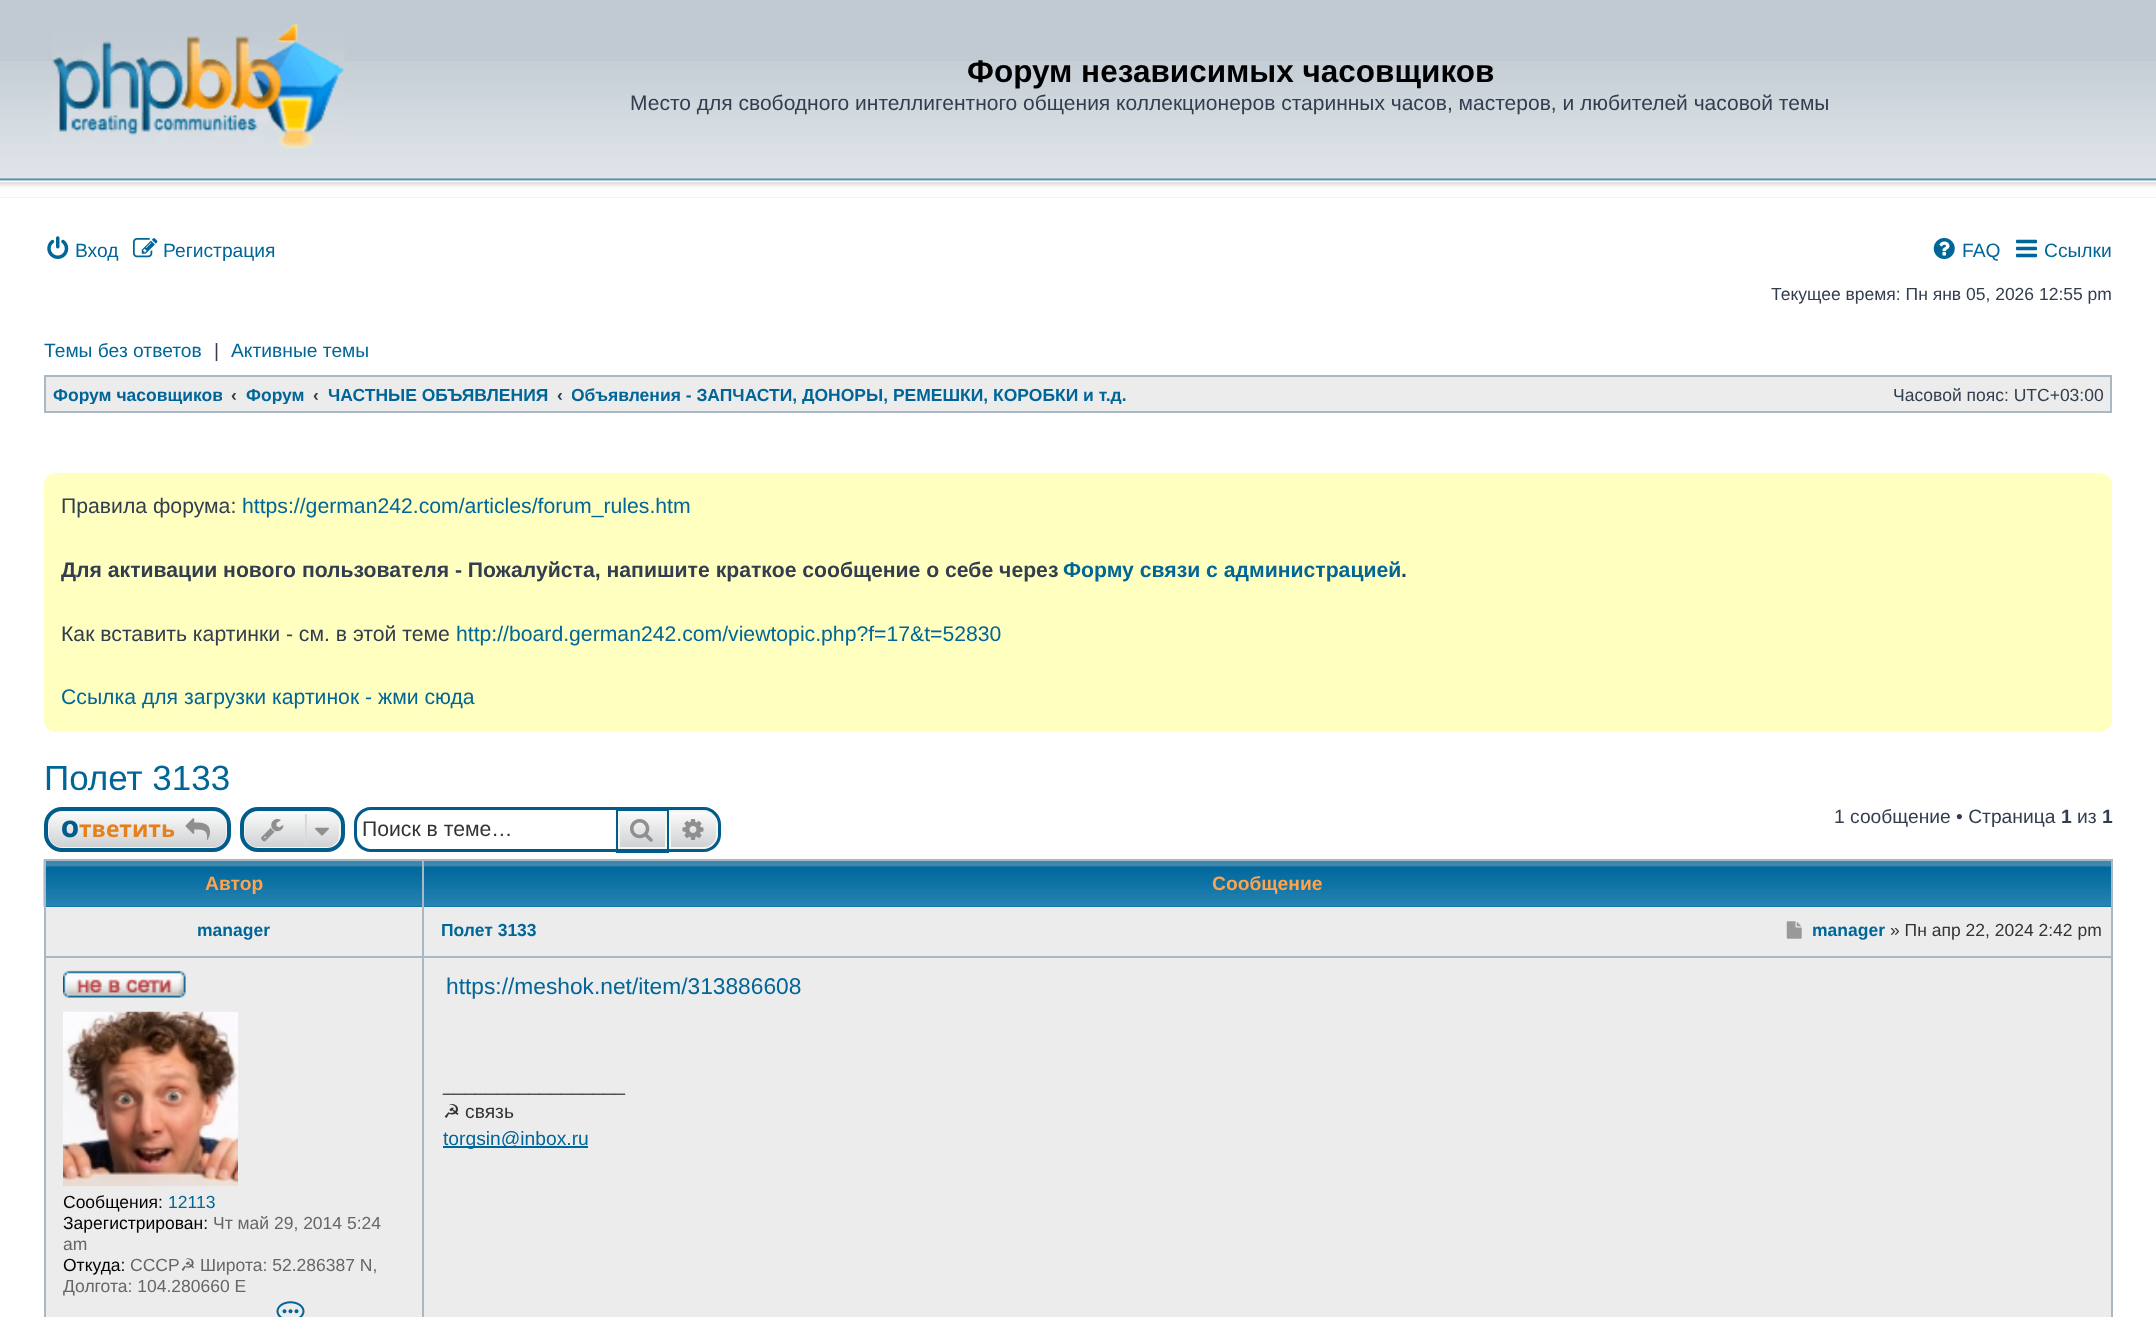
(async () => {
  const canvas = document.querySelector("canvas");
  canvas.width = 2156;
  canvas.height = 1317;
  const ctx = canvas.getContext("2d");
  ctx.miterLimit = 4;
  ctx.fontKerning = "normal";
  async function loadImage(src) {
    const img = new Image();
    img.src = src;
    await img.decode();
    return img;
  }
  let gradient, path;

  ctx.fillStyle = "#ffffff";
  ctx.fillRect(0, 0, 2156, 1317);
  ctx.fillStyle = "#c1cad2";
  ctx.fillRect(0, 0, 2156, 198);
  ctx.drawImage(await loadImage("img/1.png"), 0, 61, 2156, 137);
  ctx.drawImage(await loadImage("img/2.png"), 52, 24, 293, 125);
  ctx.drawImage(await loadImage("img/3.png"), 47, 236, 22, 23);
  ctx.drawImage(await loadImage("img/4.png"), 133, 238, 25, 20);
  ctx.drawImage(await loadImage("img/5.png"), 1933, 238, 22, 21);
  ctx.drawImage(await loadImage("img/6.png"), 2016, 239, 21, 19);
  ctx.fillStyle = "#ececec";
  ctx.beginPath();
  ctx.rect(45, 376, 2066, 36);
  ctx.fill();
  ctx.strokeStyle = "#a9b8c2";
  ctx.lineWidth = 2;
  ctx.stroke();
  ctx.fillStyle = "#ffffbf";
  ctx.beginPath();
  ctx.roundRect(44, 473, 2068, 259, 12);
  ctx.fill();
  ctx.save();
  ctx.beginPath();
  ctx.roundRect(240, 807, 105, 45, 18);
  ctx.clip();
  gradient = ctx.createLinearGradient(292, 810, 292, 849);
  gradient.addColorStop(0, "#fdfdfd");
  gradient.addColorStop(1, "#cdcfd1");
  ctx.fillStyle = gradient;
  ctx.fillRect(240, 810, 105, 39);
  ctx.restore();
  ctx.beginPath();
  ctx.roundRect(244, 811, 96, 37, 13);
  ctx.strokeStyle = "#f4f4f4";
  ctx.stroke();
  ctx.beginPath();
  ctx.roundRect(242, 809, 101, 41, 16);
  ctx.strokeStyle = "#005c8b";
  ctx.lineWidth = 4;
  ctx.stroke();
  ctx.drawImage(await loadImage("img/7.png"), 261, 819, 23, 23);
  ctx.fillStyle = "#dadada";
  ctx.fillRect(305, 814, 2, 31);
  ctx.drawImage(await loadImage("img/8.png"), 315, 827, 14, 9);
  ctx.save();
  ctx.beginPath();
  ctx.roundRect(44, 807, 187, 45, 18);
  ctx.clip();
  gradient = ctx.createLinearGradient(137, 810, 137, 849);
  gradient.addColorStop(0, "#fdfdfd");
  gradient.addColorStop(1, "#cdcfd1");
  ctx.fillStyle = gradient;
  ctx.fillRect(44, 810, 187, 39);
  ctx.restore();
  ctx.beginPath();
  ctx.roundRect(48, 811, 179, 37, 13);
  ctx.strokeStyle = "#f4f4f4";
  ctx.lineWidth = 2;
  ctx.stroke();
  ctx.beginPath();
  ctx.roundRect(46, 809, 183, 41, 16);
  ctx.strokeStyle = "#005c8b";
  ctx.lineWidth = 4;
  ctx.stroke();
  ctx.drawImage(await loadImage("img/9.png"), 185, 818, 25, 22);
  ctx.fillStyle = "#005c8b";
  path = new Path2D("M371 807H616V852H371C361 852 354 844 354 835V824C354 815 361 807 371 807ZM371 810H616V849H371C363 849 357 842 357 835V824C357 817 363 810 371 810Z");
  ctx.fill(path, "evenodd");
  gradient = ctx.createLinearGradient(642, 810, 642, 849);
  gradient.addColorStop(0, "#fdfdfd");
  gradient.addColorStop(1, "#cdcfd1");
  ctx.fillStyle = gradient;
  ctx.fillRect(620, 812, 45, 35);
  ctx.strokeStyle = "#f4f4f4";
  ctx.lineWidth = 2;
  ctx.strokeRect(619, 811, 47, 37);
  for (const [x, y, w, h, color] of [
    [616, 807, 53, 4, "#005c8b"],
    [667, 807, 2, 45, "#005c8b"],
    [616, 849, 53, 4, "#005c8b"],
    [616, 807, 2, 45, "#005c8b"],
  ]) {
    ctx.fillStyle = color;
    ctx.fillRect(x, y, w, h);
  }
  ctx.drawImage(await loadImage("img/10.png"), 630, 819, 23, 23);
  gradient = ctx.createLinearGradient(693, 810, 693, 849);
  gradient.addColorStop(0, "#fdfdfd");
  gradient.addColorStop(1, "#cdcfd1");
  ctx.fillStyle = gradient;
  ctx.beginPath();
  ctx.roundRect(670, 811, 47, 37, [0, 13, 13, 0]);
  ctx.fill();
  ctx.stroke();
  ctx.fillStyle = "#005c8b";
  path = new Path2D("M668 807H704C713 807 721 815 721 824V835C721 844 713 852 704 852H668ZM668 810H704C711 810 718 817 718 824V835C718 842 711 849 704 849H668Z");
  ctx.fill(path, "evenodd");
  ctx.drawImage(await loadImage("img/11.png"), 682, 819, 22, 21);
  ctx.fillStyle = "#006699";
  ctx.fillRect(46, 906, 2065, 1);
  ctx.drawImage(await loadImage("img/12.png"), 43, 859, 2068, 48);
  for (const [x, y, w, h, color] of [
    [44, 859, 2068, 2, "#a9b8c2"],
    [2111, 859, 2, 458, "#a9b8c2"],
    [44, 859, 2, 458, "#a9b8c2"],
    [422, 861, 2, 46, "#a9b8c2"],
    [46, 907, 2065, 410, "#ececec"],
    [422, 907, 2, 410, "#a9b8c2"],
    [46, 956, 376, 2, "#a9b8c2"],
  ]) {
    ctx.fillStyle = color;
    ctx.fillRect(x, y, w, h);
  }
  ctx.drawImage(await loadImage("img/13.png"), 63, 970, 123, 28);
  ctx.drawImage(await loadImage("img/14.png"), 63, 1011, 175, 176);
  ctx.drawImage(await loadImage("img/15.png"), 276, 1301, 29, 16);
  ctx.fillRect(424, 956, 1687, 2);
  ctx.drawImage(await loadImage("img/16.png"), 1786, 921, 16, 18);
  ctx.fillStyle = "#006597";
  ctx.fillRect(443, 1146, 145, 2);
  ctx.font = "bold 31.5px Liberation Sans";
  ctx.fillStyle = "#000000";
  ctx.fillText("Форум независимых часовщиков", 967, 82);
  ctx.font = "21px Liberation Sans";
  ctx.fillStyle = "#323d4f";
  ctx.fillText("Место для свободного интеллигентного общения коллекционеров старинных часов, мастеров, и любителей часовой темы", 630, 110);
  ctx.font = "19.25px Liberation Sans";
  ctx.fillStyle = "#006597";
  for (const [text, x, y] of [
    ["Вход", 75, 257],
    ["Регистрация", 163, 257],
    ["FAQ", 1962, 257],
    ["Ссылки", 2044, 257],
  ]) {
    ctx.fillText(text, x, y);
  }
  ctx.font = "17.5px Liberation Sans";
  ctx.fillStyle = "#323d4f";
  ctx.fillText("Текущее время: Пн янв 05, 2026 12:55 pm", 1771, 300);
  ctx.font = "19.25px Liberation Sans";
  ctx.fillStyle = "#006597";
  ctx.fillText("Темы без ответов", 44, 357);
  ctx.fillStyle = "#323d4f";
  ctx.fillText("|", 214, 357);
  ctx.fillStyle = "#006597";
  ctx.fillText("Активные темы", 231, 357);
  ctx.save();
  ctx.beginPath();
  ctx.rect(53, 385, 169, 19);
  ctx.clip();
  ctx.font = "bold 17.5px Liberation Sans";
  ctx.fillText("Форум часовщиков", 53, 401);
  ctx.restore();
  ctx.font = "bold 17.5px Liberation Sans";
  ctx.fillStyle = "#323d4f";
  ctx.fillText("‹", 231, 401);
  ctx.save();
  ctx.beginPath();
  ctx.rect(245, 385, 60, 19);
  ctx.clip();
  ctx.fillStyle = "#006597";
  ctx.fillText("Форум", 246, 401);
  ctx.restore();
  ctx.fillText("‹", 313, 401);
  ctx.fillStyle = "#006597";
  ctx.fillText("ЧАСТНЫЕ ОБЪЯВЛЕНИЯ", 328, 401);
  ctx.fillStyle = "#323d4f";
  ctx.fillText("‹", 557, 401);
  ctx.save();
  ctx.beginPath();
  ctx.rect(572, 385, 555, 19);
  ctx.clip();
  ctx.fillStyle = "#006597";
  ctx.fillText("Объявления - ЗАПЧАСТИ, ДОНОРЫ, РЕМЕШКИ, КОРОБКИ и т.д.", 571, 401);
  ctx.restore();
  ctx.font = "17.5px Liberation Sans";
  ctx.fillText("Часовой пояс: UTC+03:00", 1893, 401);
  ctx.font = "21.2px Liberation Sans";
  ctx.fillText("Правила форума:", 61, 513);
  ctx.fillStyle = "#006597";
  ctx.fillText("https://german242.com/articles/forum_rules.htm", 242, 513);
  ctx.font = "bold 21.2px Liberation Sans";
  ctx.fillStyle = "#323d4f";
  ctx.fillText("Для активации нового пользователя - Пожалуйста, напишите краткое сообщение о себе через", 61, 577);
  ctx.fillStyle = "#006597";
  ctx.fillText("Форму связи с администрацией", 1063, 577);
  ctx.fillStyle = "#323d4f";
  ctx.fillText(".", 1401, 577);
  ctx.font = "21.2px Liberation Sans";
  ctx.fillText("Как вставить картинки - см. в этой теме", 61, 641);
  ctx.fillStyle = "#006597";
  ctx.fillText("http://board.german242.com/viewtopic.php?f=17&t=52830", 456, 641);
  ctx.fillText("Ссылка для загрузки картинок - жми сюда", 61, 704);
  ctx.font = "35px Liberation Sans";
  ctx.fillText("Полет 3133", 44, 790);
  ctx.font = "19.25px Liberation Sans";
  ctx.fillStyle = "#323d4f";
  ctx.fillText("1 сообщение • Страница", 1834, 823);
  ctx.font = "bold 19.25px Liberation Sans";
  ctx.fillText("1", 2061, 823);
  ctx.font = "19.25px Liberation Sans";
  ctx.fillText("из", 2077, 823);
  ctx.font = "bold 19.25px Liberation Sans";
  ctx.fillText("1", 2102, 823);
  ctx.font = "900 22.75px Noto Sans";
  ctx.fillStyle = "#005c8b";
  ctx.fillText("О", 61, 837);
  ctx.font = "bold 22.75px Open Sans";
  ctx.fillStyle = "#e5801c";
  ctx.fillText("тветить", 79, 837);
  ctx.font = "21.2px Liberation Sans";
  ctx.fillStyle = "#333333";
  ctx.fillText("Поиск в теме…", 362, 836);
  ctx.font = "bold 19.25px Liberation Sans";
  ctx.fillStyle = "#ffa34f";
  ctx.fillText("Автор", 205, 890);
  ctx.fillText("Сообщение", 1212, 890);
  ctx.font = "bold 17.5px Liberation Sans";
  ctx.fillStyle = "#006597";
  ctx.fillText("manager", 197, 936);
  ctx.font = "17.5px Liberation Sans";
  ctx.fillStyle = "#000000";
  ctx.fillText("Сообщения:", 63, 1208);
  ctx.fillStyle = "#006597";
  ctx.fillText("12113", 168, 1208);
  ctx.fillStyle = "#000000";
  ctx.fillText("Зарегистрирован:", 63, 1229);
  ctx.fillStyle = "#666666";
  ctx.fillText("Чт май 29, 2014 5:24", 213, 1229);
  ctx.fillText("am", 63, 1250);
  ctx.fillStyle = "#000000";
  ctx.fillText("Откуда:", 63, 1271);
  ctx.fillStyle = "#666666";
  ctx.fillText("СССР", 130, 1271);
  ctx.font = "17.5px DejaVu Sans";
  ctx.fillText("☭", 180, 1271);
  ctx.font = "17.5px Liberation Sans";
  ctx.fillText("Широта: 52.286387 N,", 200, 1271);
  ctx.fillText("Долгота: 104.280660 E", 63, 1292);
  ctx.font = "bold 17.5px Liberation Sans";
  ctx.fillStyle = "#006597";
  ctx.fillText("Полет 3133", 441, 936);
  ctx.fillText("manager", 1812, 936);
  ctx.font = "17.5px Liberation Sans";
  ctx.fillStyle = "#333333";
  ctx.fillText("» Пн апр 22, 2024 2:42 pm", 1890, 936);
  ctx.font = "22.75px Liberation Sans";
  ctx.fillStyle = "#006597";
  ctx.fillText("https://meshok.net/item/313886608", 446, 994);
  ctx.font = "19.25px Liberation Sans";
  ctx.fillStyle = "#333333";
  ctx.fillText("_________________", 443, 1091);
  ctx.font = "19.25px DejaVu Sans";
  ctx.fillText("☭", 443, 1118);
  ctx.font = "19.25px Liberation Sans";
  ctx.fillText("связь", 465, 1118);
  ctx.fillStyle = "#006597";
  ctx.fillText("torgsin@inbox.ru", 443, 1145);
})();
